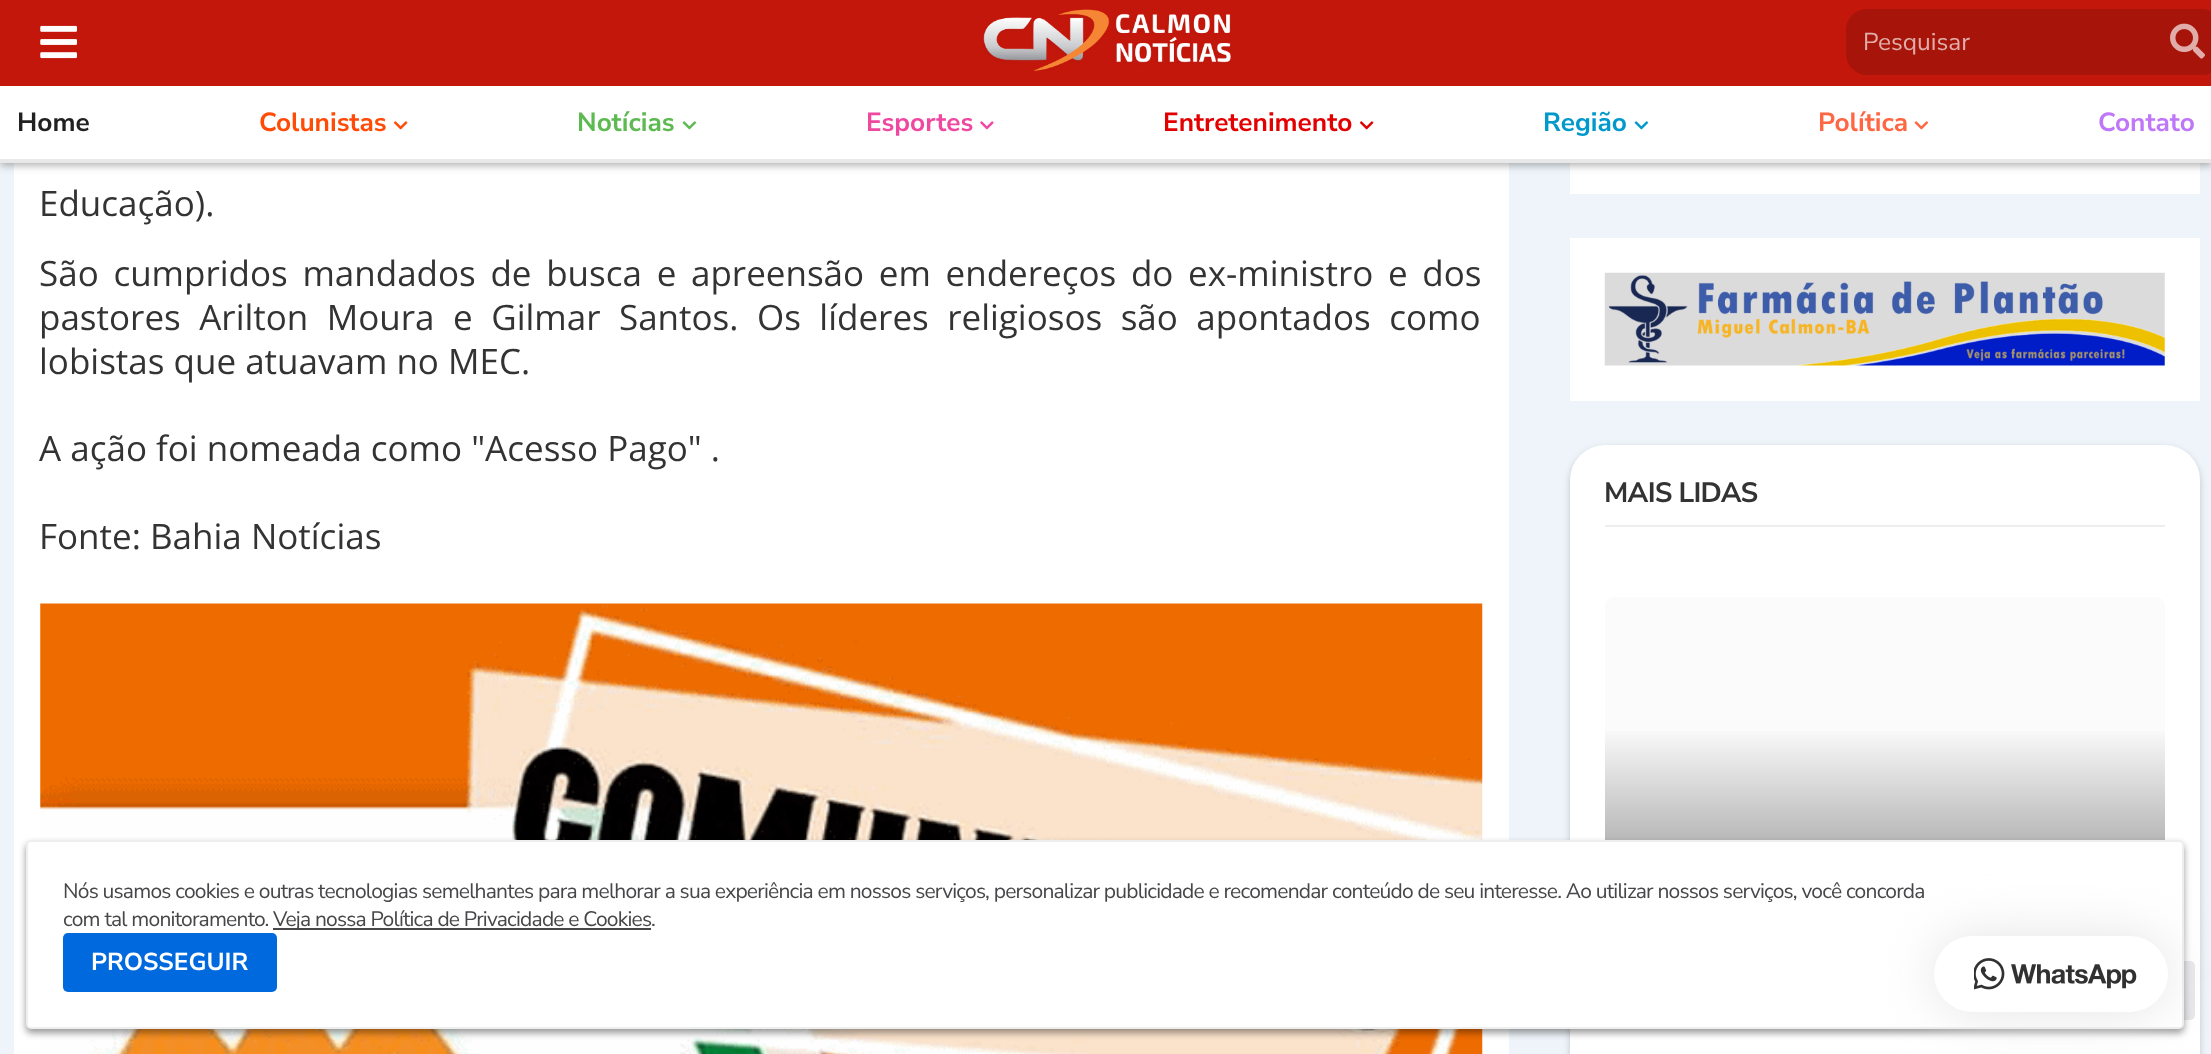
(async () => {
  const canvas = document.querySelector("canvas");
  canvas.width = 2211;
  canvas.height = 1054;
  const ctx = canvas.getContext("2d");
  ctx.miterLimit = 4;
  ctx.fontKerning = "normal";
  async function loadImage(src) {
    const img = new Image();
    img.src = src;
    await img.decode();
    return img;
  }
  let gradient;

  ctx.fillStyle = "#eef4f9";
  ctx.fillRect(0, 0, 2211, 1054);
  ctx.fillStyle = "#ffffff";
  ctx.fillRect(14, 163, 1495, 891);
  ctx.fillRect(1570, 163, 630, 31);
  ctx.fillStyle = "rgba(0, 0, 0, 0.34)";
  ctx.filter = "blur(4.5px)";
  ctx.beginPath();
  ctx.rect(0, 4, 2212, 161);
  ctx.fill();
  ctx.filter = "none";
  ctx.fillStyle = "#c4170c";
  ctx.fillRect(0, 0, 2211, 86);
  ctx.drawImage(await loadImage("img/1.png"), 40, 25, 37, 34);
  ctx.drawImage(await loadImage("img/2.png"), 982, 9, 249, 62);
  ctx.fillStyle = "#a7140a";
  ctx.beginPath();
  ctx.roundRect(1846, 9, 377, 66, 21);
  ctx.fill();
  ctx.drawImage(await loadImage("img/3.png"), 2170, 23, 35, 36);
  ctx.fillStyle = "#ffffff";
  ctx.fillRect(0, 86, 2211, 73);
  ctx.drawImage(await loadImage("img/4.png"), 394, 121, 14, 9);
  ctx.drawImage(await loadImage("img/5.png"), 682, 121, 15, 9);
  ctx.drawImage(await loadImage("img/6.png"), 980, 121, 14, 9);
  ctx.drawImage(await loadImage("img/7.png"), 1360, 121, 14, 9);
  ctx.drawImage(await loadImage("img/8.png"), 1634, 121, 15, 9);
  ctx.drawImage(await loadImage("img/9.png"), 1914, 121, 15, 9);
  ctx.fillStyle = "#e8e8e8";
  ctx.fillRect(0, 159, 2211, 4);
  ctx.drawImage(await loadImage("img/10.png"), 40, 603, 1443, 451);
  ctx.fillStyle = "#ffffff";
  ctx.fillRect(1570, 238, 630, 163);
  ctx.drawImage(await loadImage("img/11.png"), 1604, 272, 561, 94);
  ctx.fillStyle = "rgba(0, 0, 0, 0.18)";
  ctx.filter = "blur(3.5px)";
  ctx.beginPath();
  ctx.roundRect(1570, 448, 630, 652, 35);
  ctx.fill();
  ctx.filter = "none";
  ctx.fillStyle = "#ffffff";
  ctx.beginPath();
  ctx.roundRect(1570, 445, 630, 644, 35);
  ctx.fill();
  ctx.fillStyle = "#eeeeee";
  ctx.fillRect(1605, 525, 560, 2);
  ctx.fillStyle = "#fbfbfb";
  ctx.beginPath();
  ctx.roundRect(1605, 597, 560, 429, 9);
  ctx.fill();
  gradient = ctx.createLinearGradient(1885, 725, 1885, 1026);
  gradient.addColorStop(0, "#fcfcfc");
  gradient.addColorStop(1, "#4b4b4b");
  ctx.fillStyle = gradient;
  ctx.fillRect(1605, 731, 560, 109);
  ctx.fillStyle = "#e7e7ea";
  ctx.beginPath();
  ctx.roundRect(2135, 961, 60, 59, 5);
  ctx.fill();
  ctx.fillStyle = "rgba(0, 0, 0, 0.4)";
  ctx.filter = "blur(3.5px)";
  ctx.beginPath();
  ctx.roundRect(26, 844, 2158, 189, 5);
  ctx.fill();
  ctx.filter = "none";
  ctx.fillStyle = "#ffffff";
  ctx.beginPath();
  ctx.roundRect(27, 841, 2156, 187, 4);
  ctx.fill();
  ctx.strokeStyle = "#eeeeee";
  ctx.lineWidth = 2;
  ctx.stroke();
  ctx.fillStyle = "#47474a";
  ctx.fillRect(273, 928, 378, 2);
  ctx.fillStyle = "#0069de";
  ctx.beginPath();
  ctx.roundRect(63, 933, 214, 59, 5);
  ctx.fill();
  ctx.fillStyle = "#e4e4e5";
  ctx.filter = "blur(26px)";
  ctx.beginPath();
  ctx.roundRect(1934, 936, 234, 76, 38);
  ctx.fill();
  ctx.filter = "none";
  ctx.fillStyle = "#ffffff";
  ctx.beginPath();
  ctx.roundRect(1934, 936, 234, 76, 38);
  ctx.fill();
  ctx.drawImage(await loadImage("img/12.png"), 1974, 958, 31, 32);
  ctx.drawImage(await loadImage("img/13.png"), 2011, 964, 126, 25);
  ctx.font = "24.5px Nunito Sans";
  ctx.fillStyle = "#e0ada9";
  ctx.fillText("Pesquisar", 1863, 50);
  ctx.font = "bold 26.25px Nunito Sans";
  ctx.fillStyle = "#212121";
  ctx.fillText("Home", 17, 131);
  ctx.fillStyle = "#ff4b05";
  ctx.fillText("Colunistas", 259, 131);
  ctx.fillStyle = "#5cba51";
  ctx.fillText("Notícias", 577, 131);
  ctx.fillStyle = "#ef48a0";
  ctx.fillText("Esportes", 866, 131);
  ctx.fillStyle = "#e20000";
  ctx.fillText("Entretenimento", 1163, 131);
  ctx.fillStyle = "#0099cc";
  ctx.fillText("Região", 1543, 131);
  ctx.fillStyle = "#ff6642";
  ctx.fillText("Política", 1818, 131);
  ctx.fillStyle = "#bf76f8";
  ctx.fillText("Contato", 2098, 131);
  ctx.font = "35px Open Sans";
  ctx.fillStyle = "#333333";
  ctx.fillText("Educação).", 39, 216);
  ctx.wordSpacing = "5.6px";
  ctx.fillText("São cumpridos mandados de busca e apreensão em endereços do ex-ministro e dos", 39, 286);
  ctx.wordSpacing = "9.4px";
  ctx.fillText("pastores Arilton Moura e Gilmar Santos. Os líderes religiosos são apontados como", 39, 330);
  ctx.wordSpacing = "0px";
  for (const [text, x, y] of [
    ["lobistas que atuavam no MEC.", 39, 374],
    ["A ação foi nomeada como \"Acesso Pago\" .", 39, 461],
    ["Fonte: Bahia Notícias", 39, 549],
  ]) {
    ctx.fillText(text, x, y);
  }
  ctx.letterSpacing = "-0.75px";
  ctx.font = "bold 28px Nunito Sans";
  ctx.fillText("MAIS LIDAS", 1604, 502);
  ctx.letterSpacing = "-0.79px";
  ctx.font = "21px Nunito Sans";
  ctx.fillStyle = "#47474a";
  for (const [text, x, y] of [
    ["Nós usamos cookies e outras tecnologias semelhantes para melhorar a sua experiência em nossos serviços, personalizar publicidade e recomendar conteúdo de seu interesse. Ao utilizar nossos serviços, você concorda", 63, 898],
    ["com tal monitoramento.", 63, 926],
    ["Veja nossa Política de Privacidade e Cookies.", 273, 926],
  ]) {
    ctx.fillText(text, x, y);
  }
  ctx.letterSpacing = "0px";
  ctx.font = "bold 24.5px Nunito Sans";
  ctx.fillStyle = "#ffffff";
  ctx.fillText("PROSSEGUIR", 91, 970);
})();
